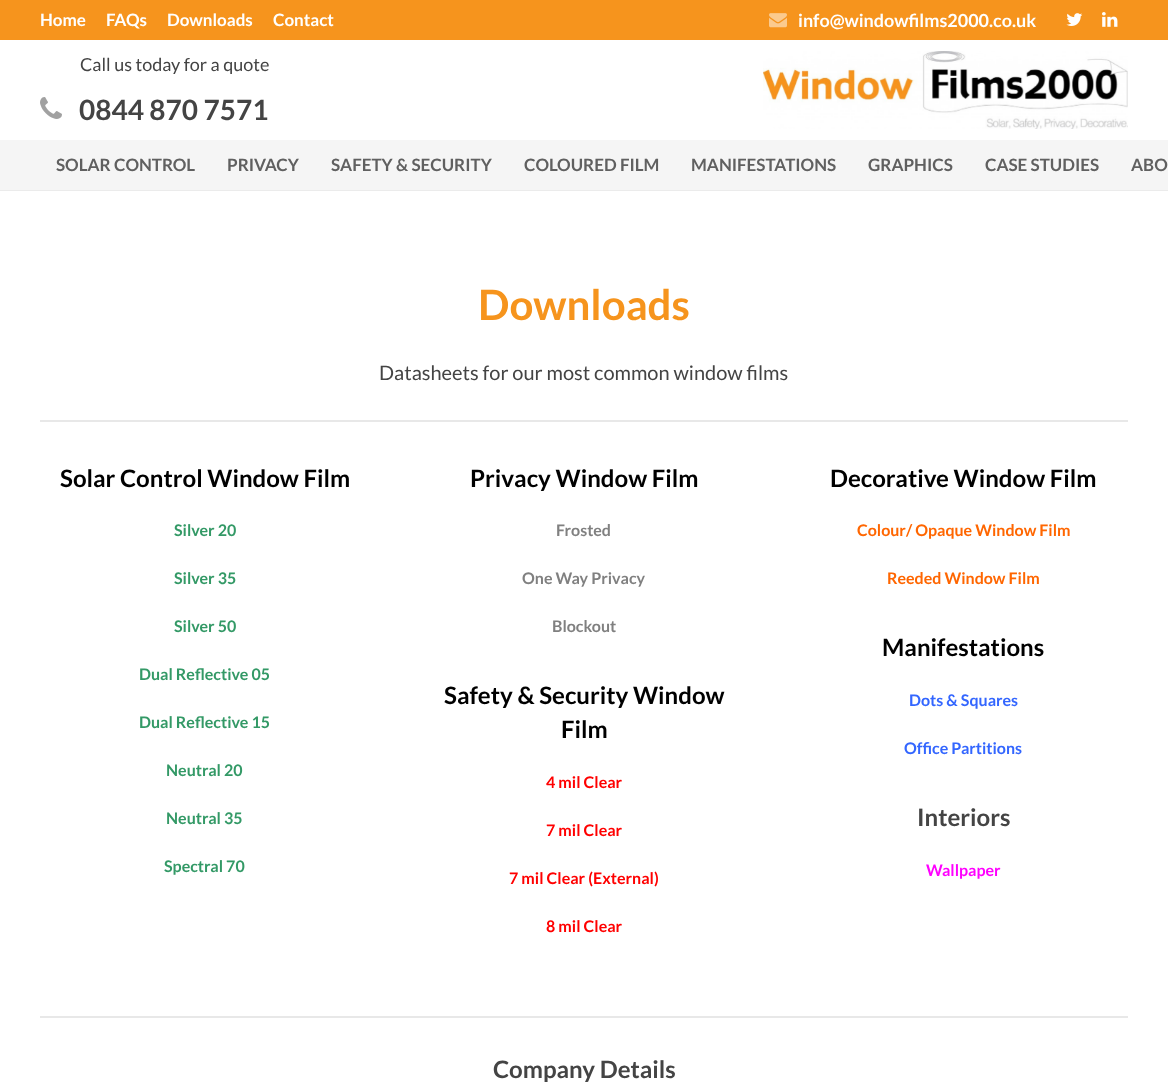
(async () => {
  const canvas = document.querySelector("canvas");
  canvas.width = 1168;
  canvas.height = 1083;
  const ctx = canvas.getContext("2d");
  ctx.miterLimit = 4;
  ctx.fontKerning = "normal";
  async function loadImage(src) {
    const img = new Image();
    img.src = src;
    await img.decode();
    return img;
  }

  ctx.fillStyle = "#ffffff";
  ctx.fillRect(0, 0, 1168, 1083);
  ctx.fillStyle = "#f6941d";
  ctx.fillRect(0, 0, 1168, 40);
  ctx.drawImage(await loadImage("img/1.png"), 769, 13, 18, 15);
  ctx.drawImage(await loadImage("img/2.png"), 1066, 13, 17, 13);
  ctx.drawImage(await loadImage("img/3.png"), 1102, 12, 16, 15);
  ctx.drawImage(await loadImage("img/4.png"), 40, 97, 22, 22);
  ctx.drawImage(await loadImage("img/5.png"), 763, 51, 365, 78);
  for (const [x, y, w, h, color] of [
    [0, 190, 1168, 1, "#ebebeb"],
    [0, 140, 1168, 50, "#f5f5f5"],
    [40, 420, 1088, 2, "#e8e8e8"],
    [40, 1016, 1088, 2, "#e8e8e8"],
  ]) {
    ctx.fillStyle = color;
    ctx.fillRect(x, y, w, h);
  }
  ctx.font = "bold 17px Lato";
  ctx.fillStyle = "#ffffff";
  for (const [text, x, y] of [
    ["Home", 40, 26],
    ["FAQs", 106, 26],
    ["Downloads", 167, 26],
    ["Contact", 273, 26],
  ]) {
    ctx.fillText(text, x, y);
  }
  ctx.font = "bold 18px Lato";
  ctx.fillText("info@windowfilms2000.co.uk", 798, 27);
  ctx.font = "18px Lato";
  ctx.fillStyle = "#444444";
  ctx.fillText("Call us today for a quote", 80, 71);
  ctx.font = "bold 28px Lato";
  ctx.fillText("0844 870 7571", 79, 120);
  ctx.font = "bold 17px Lato";
  ctx.fillStyle = "#606060";
  for (const [text, x, y] of [
    ["SOLAR CONTROL", 56, 171],
    ["PRIVACY", 227, 171],
    ["SAFETY & SECURITY", 331, 171],
    ["COLOURED FILM", 524, 171],
    ["MANIFESTATIONS", 691, 171],
    ["GRAPHICS", 868, 171],
    ["CASE STUDIES", 985, 171],
    ["ABO", 1131, 171],
  ]) {
    ctx.fillText(text, x, y);
  }
  ctx.font = "bold 42px Lato";
  ctx.fillStyle = "#f6941d";
  ctx.fillText("Downloads", 478, 320);
  ctx.font = "20px Lato";
  ctx.fillStyle = "#444444";
  ctx.fillText("Datasheets for our most common window films", 379, 380);
  ctx.font = "bold 24px Lato";
  ctx.fillStyle = "#000000";
  ctx.fillText("Solar Control Window Film", 60, 487);
  ctx.font = "bold 16px Lato";
  ctx.fillStyle = "#339966";
  for (const [text, x, y] of [
    ["Silver 20", 174, 536],
    ["Silver 35", 174, 584],
    ["Silver 50", 174, 632],
    ["Dual Reflective 05", 139, 680],
    ["Dual Reflective 15", 139, 728],
    ["Neutral 20", 166, 776],
    ["Neutral 35", 166, 824],
    ["Spectral 70", 164, 872],
  ]) {
    ctx.fillText(text, x, y);
  }
  ctx.font = "bold 24px Lato";
  ctx.fillStyle = "#000000";
  ctx.fillText("Privacy Window Film", 470, 487);
  ctx.font = "bold 16px Lato";
  ctx.fillStyle = "#808080";
  for (const [text, x, y] of [
    ["Frosted", 556, 536],
    ["One Way Privacy", 522, 584],
    ["Blockout", 552, 632],
  ]) {
    ctx.fillText(text, x, y);
  }
  ctx.font = "bold 24px Lato";
  ctx.fillStyle = "#000000";
  ctx.fillText("Safety & Security Window", 444, 704);
  ctx.fillText("Film", 561, 738);
  ctx.font = "bold 16px Lato";
  ctx.fillStyle = "#ff0000";
  for (const [text, x, y] of [
    ["4 mil Clear", 546, 788],
    ["7 mil Clear", 546, 836],
    ["7 mil Clear (External)", 509, 884],
    ["8 mil Clear", 546, 932],
  ]) {
    ctx.fillText(text, x, y);
  }
  ctx.font = "bold 24px Lato";
  ctx.fillStyle = "#000000";
  ctx.fillText("Decorative Window Film", 830, 487);
  ctx.font = "bold 16px Lato";
  ctx.fillStyle = "#ff6600";
  ctx.fillText("Colour/ Opaque Window Film", 857, 536);
  ctx.fillText("Reeded Window Film", 887, 584);
  ctx.font = "bold 24px Lato";
  ctx.fillStyle = "#000000";
  ctx.fillText("Manifestations", 882, 656);
  ctx.font = "bold 16px Lato";
  ctx.fillStyle = "#3366ff";
  ctx.fillText("Dots & Squares", 909, 706);
  ctx.fillText("Office Partitions", 904, 754);
  ctx.font = "bold 24px Lato";
  ctx.fillStyle = "#444444";
  ctx.fillText("Interiors", 917, 826);
  ctx.font = "bold 16px Lato";
  ctx.fillStyle = "#ff00ff";
  ctx.fillText("Wallpaper", 926, 876);
  ctx.font = "bold 24px Lato";
  ctx.fillStyle = "#444444";
  ctx.fillText("Company Details", 493, 1078);
})();
